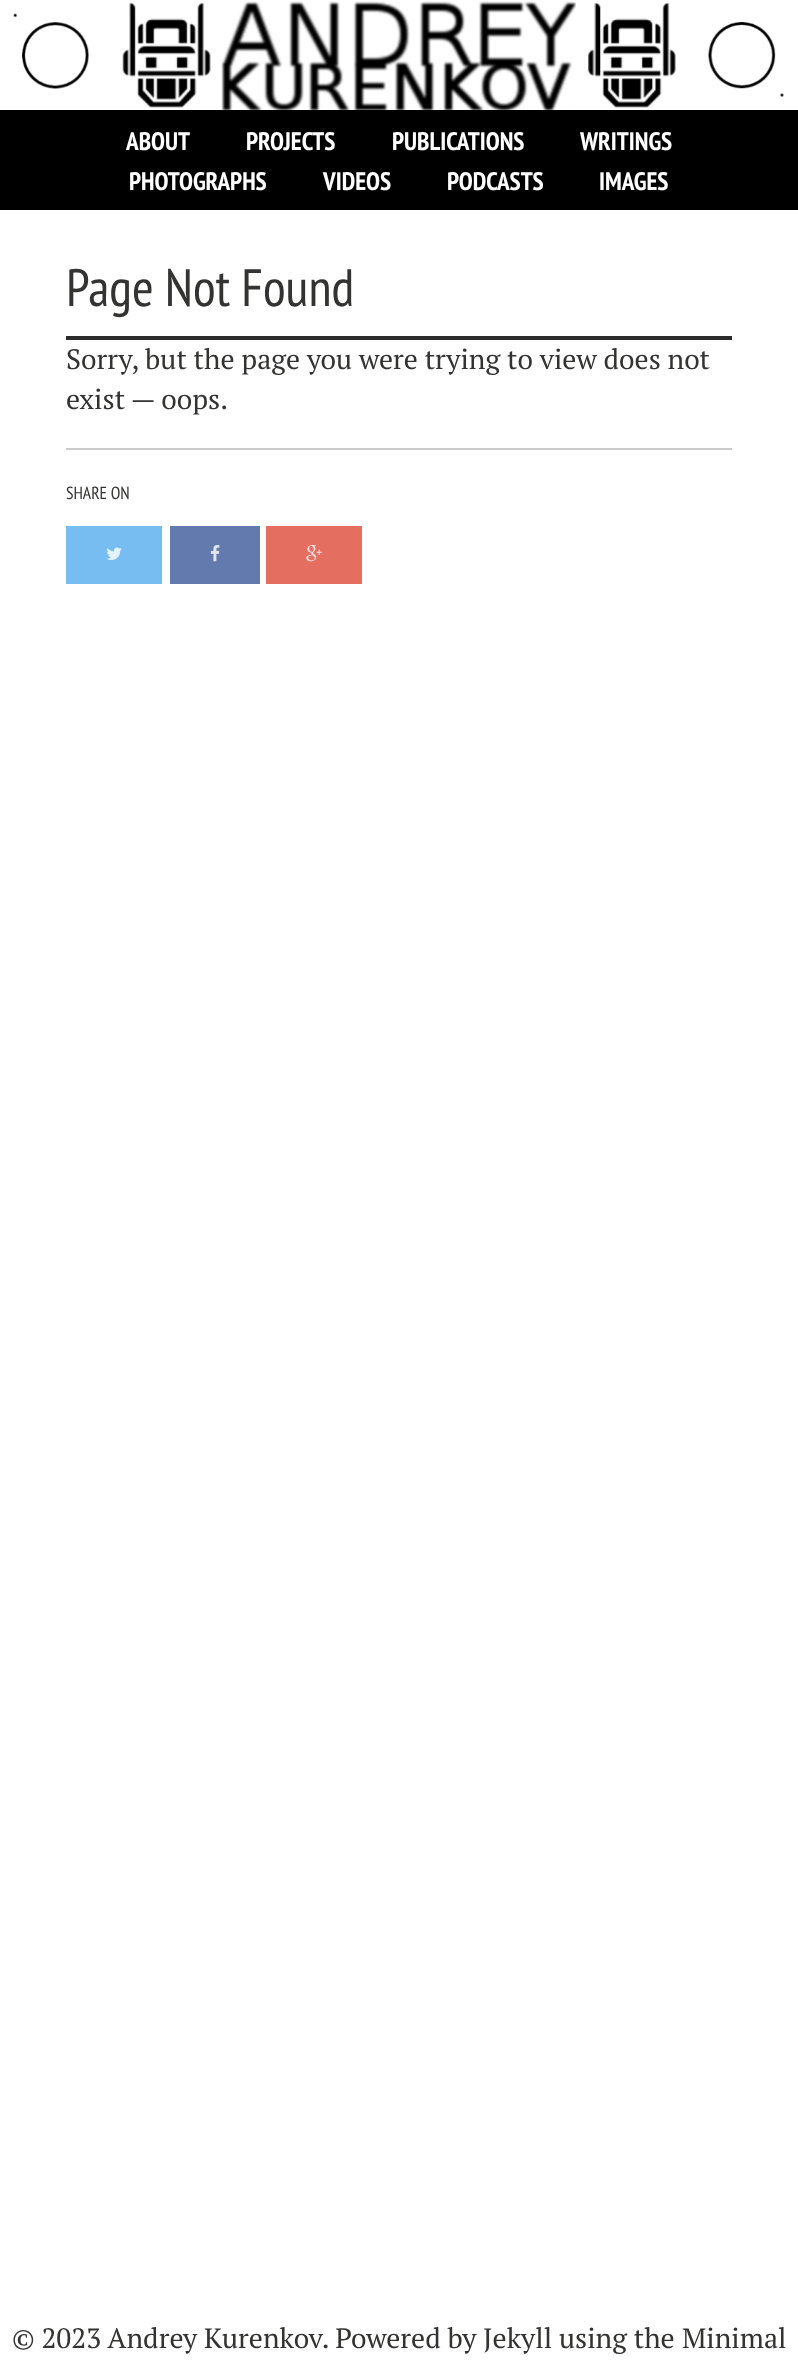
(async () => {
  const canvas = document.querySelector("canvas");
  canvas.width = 798;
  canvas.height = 2368;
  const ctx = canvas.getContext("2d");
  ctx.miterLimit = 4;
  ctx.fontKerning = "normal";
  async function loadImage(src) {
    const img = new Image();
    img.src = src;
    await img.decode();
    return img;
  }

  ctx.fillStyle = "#ffffff";
  ctx.fillRect(0, 0, 798, 2368);
  ctx.drawImage(await loadImage("img/1.png"), 13, 1, 771, 109);
  for (const [x, y, w, h, color] of [
    [0, 110, 798, 100, "#000000"],
    [66, 336, 666, 4, "#2b2b2b"],
    [66, 448, 666, 2, "#cccccc"],
    [66, 526, 96, 58, "#77bdf1"],
  ]) {
    ctx.fillStyle = color;
    ctx.fillRect(x, y, w, h);
  }
  ctx.drawImage(await loadImage("img/2.png"), 106, 547, 16, 13);
  ctx.fillStyle = "#627aad";
  ctx.fillRect(170, 526, 90, 58);
  ctx.drawImage(await loadImage("img/3.png"), 210, 545, 10, 17);
  ctx.fillStyle = "#e46f61";
  ctx.fillRect(266, 526, 96, 58);
  ctx.drawImage(await loadImage("img/4.png"), 306, 545, 16, 17);
  ctx.font = "bold 25.25px PT Sans Narrow";
  ctx.fillStyle = "#ffffff";
  for (const [text, x, y] of [
    ["ABOUT", 126, 150],
    ["PROJECTS", 246, 150],
    ["PUBLICATIONS", 392, 150],
    ["WRITINGS", 580, 150],
    ["PHOTOGRAPHS", 129, 190],
    ["VIDEOS", 323, 190],
    ["PODCASTS", 447, 190],
    ["IMAGES", 599, 190],
  ]) {
    ctx.fillText(text, x, y);
  }
  ctx.font = "52.5px PT Sans Narrow";
  ctx.fillStyle = "#333332";
  ctx.fillText("Page Not Found", 66, 306);
  ctx.font = "28px PT Serif";
  ctx.fillText("Sorry, but the page you were trying to view does not", 66, 369);
  ctx.fillText("exist — oops.", 66, 409);
  ctx.font = "17.5px PT Sans Narrow";
  ctx.fillText("SHARE ON", 66, 499);
  ctx.font = "28px PT Serif";
  for (const [text, x, y] of [
    ["© 2023 Andrey Kurenkov. Powered by", 12, 2348],
    ["Jekyll", 483, 2348],
    ["using the", 559, 2348],
    ["Minimal", 682, 2348],
  ]) {
    ctx.fillText(text, x, y);
  }
})();
